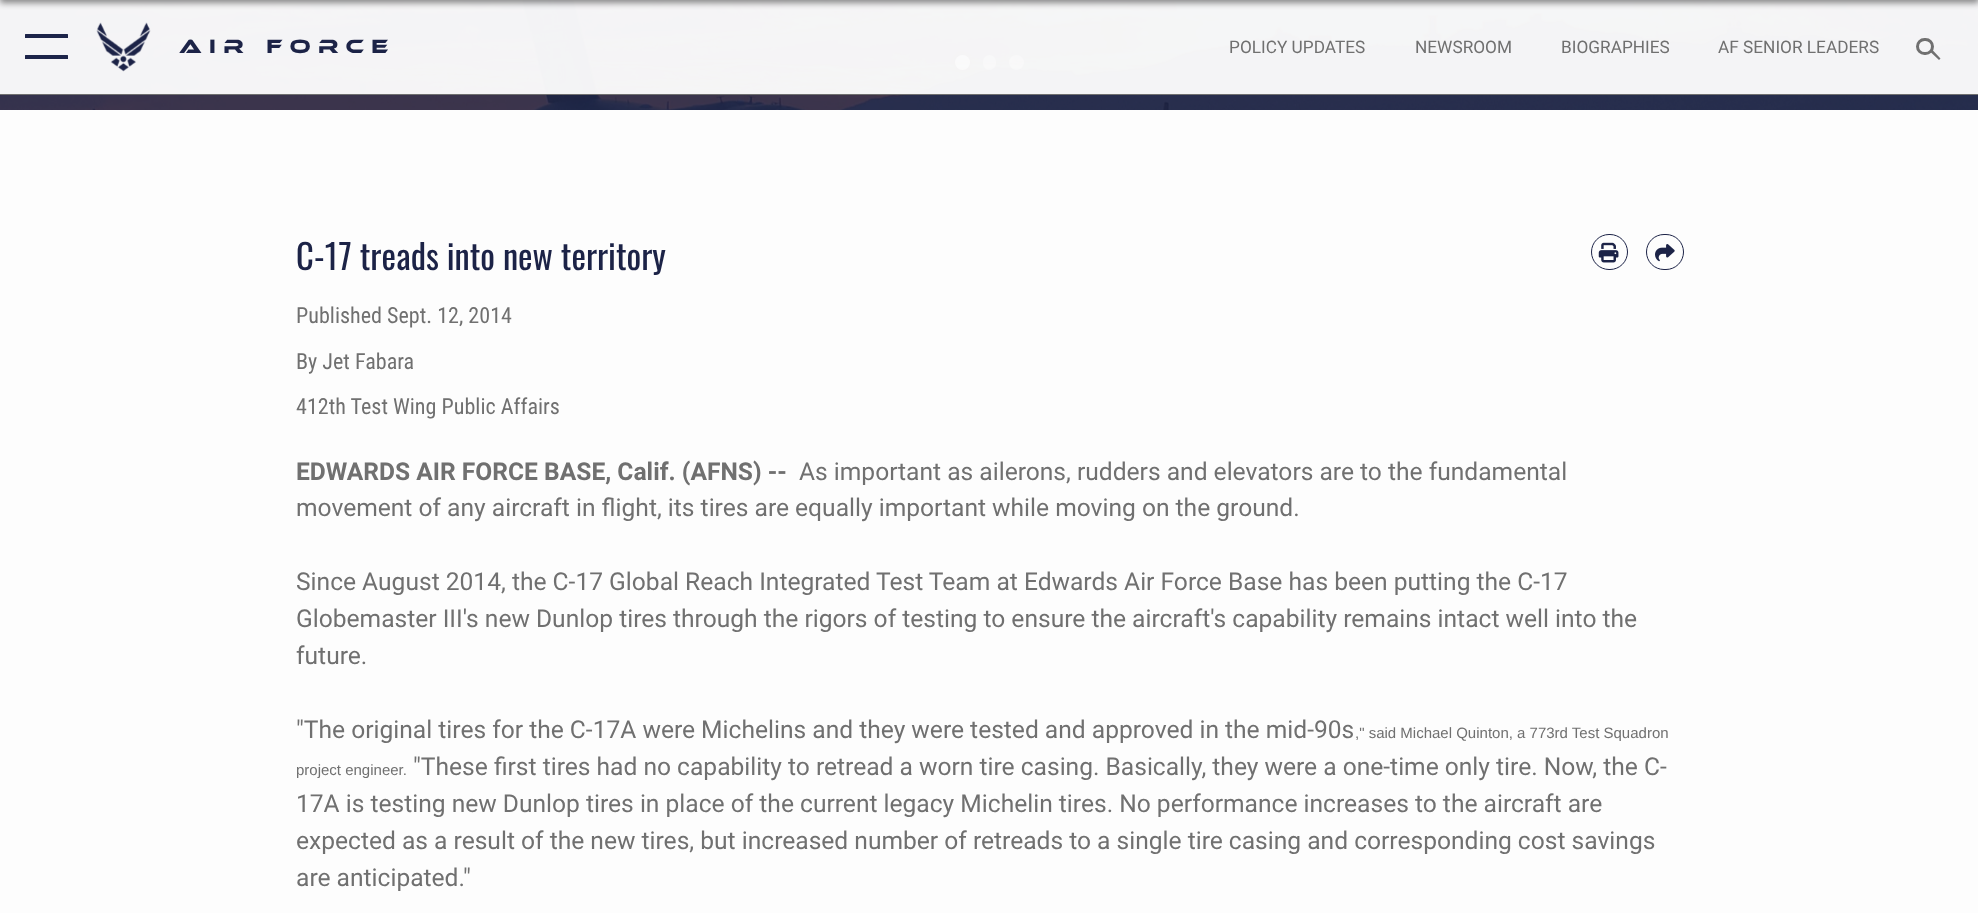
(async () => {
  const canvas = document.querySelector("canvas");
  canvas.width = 1978;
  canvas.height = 913;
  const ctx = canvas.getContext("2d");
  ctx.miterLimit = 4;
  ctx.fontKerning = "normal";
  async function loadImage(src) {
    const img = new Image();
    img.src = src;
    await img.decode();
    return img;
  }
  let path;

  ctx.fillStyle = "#fdfdfd";
  ctx.fillRect(0, 0, 1978, 913);
  ctx.drawImage(await loadImage("img/2.png"), 0, 0, 1978, 110);
  ctx.save();
  path = new Path2D("M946 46H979V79H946ZM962.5 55C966.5 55 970 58.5 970 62.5C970 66.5 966.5 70 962.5 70C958.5 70 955 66.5 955 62.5C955 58.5 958.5 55 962.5 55Z");
  ctx.clip(path, "evenodd");
  ctx.fillStyle = "rgba(0, 0, 0, 0.5)";
  ctx.filter = "blur(2.5px)";
  ctx.beginPath();
  ctx.roundRect(955, 55, 15, 15, 7.5);
  ctx.fill();
  ctx.filter = "none";
  ctx.restore();
  ctx.fillStyle = "rgba(255, 255, 255, 0.5)";
  ctx.beginPath();
  ctx.arc(962.5, 62.5, 7.5, 0, Math.PI * 2);
  ctx.fill();
  ctx.fillStyle = "rgba(255, 255, 255, 0.3)";
  ctx.beginPath();
  ctx.roundRect(983, 55, 13, 15, 6.5);
  ctx.fill();
  ctx.beginPath();
  ctx.arc(1016.5, 62.5, 7.5, 0, Math.PI * 2);
  ctx.fill();
  ctx.fillStyle = "rgba(255, 255, 255, 0.95)";
  ctx.fillRect(0, 0, 1978, 94);
  ctx.fillStyle = "rgba(0, 0, 0, 0.45)";
  ctx.filter = "blur(3px)";
  ctx.beginPath();
  ctx.rect(0, -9, 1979, 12);
  ctx.fill();
  ctx.filter = "none";
  ctx.fillStyle = "#707070";
  ctx.fillRect(0, 94, 1978, 1);
  ctx.fillStyle = "#1c2449";
  ctx.beginPath();
  ctx.roundRect(25, 34, 43, 4, 0.5);
  ctx.fill();
  ctx.beginPath();
  ctx.roundRect(25, 55, 43, 4, 0.5);
  ctx.fill();
  ctx.drawImage(await loadImage("img/1.png"), 96, 22, 55, 50);
  ctx.beginPath();
  ctx.roundRect(1917.5, 39.5, 15, 14, 7);
  ctx.strokeStyle = "#707070";
  ctx.lineWidth = 3;
  ctx.stroke();
  ctx.fillStyle = "#707070";
  path = new Path2D("M1932 49.5L1940.5 58.5L1939 60L1930 51.5Z");
  ctx.fill(path);
  ctx.beginPath();
  ctx.roundRect(1591.5, 234.5, 36, 35, 17.5);
  ctx.strokeStyle = "#1c2347";
  ctx.lineWidth = 1;
  ctx.stroke();
  ctx.drawImage(await loadImage("img/3.png"), 1598, 242, 21, 21);
  ctx.beginPath();
  ctx.roundRect(1646.5, 234.5, 37, 35, 17.5);
  ctx.stroke();
  ctx.drawImage(await loadImage("img/4.png"), 1655, 244, 20, 18);
  ctx.letterSpacing = "7.4px";
  ctx.font = "20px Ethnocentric";
  ctx.fillStyle = "#1c2347";
  ctx.fillText("Air Force", 179, 53);
  ctx.letterSpacing = "0px";
  ctx.font = "17.25px Roboto";
  ctx.fillStyle = "#707070";
  for (const [text, x, y] of [
    ["POLICY UPDATES", 1229, 53],
    ["NEWSROOM", 1415, 53],
    ["BIOGRAPHIES", 1561, 53],
    ["AF SENIOR LEADERS", 1718, 53],
  ]) {
    ctx.fillText(text, x, y);
  }
  ctx.font = "34.5px Oswald";
  ctx.fillStyle = "#1c2347";
  ctx.fillText("C-17 treads into new territory", 296, 270);
  ctx.font = "22.1px Roboto Condensed";
  ctx.fillStyle = "#707070";
  for (const [text, x, y] of [
    ["Published Sept. 12, 2014", 296, 323],
    ["By Jet Fabara", 296, 369],
    ["412th Test Wing Public Affairs", 296, 414],
  ]) {
    ctx.fillText(text, x, y);
  }
  ctx.font = "bold 24.6px Roboto";
  ctx.fillText("EDWARDS AIR FORCE BASE, Calif. (AFNS) --", 296, 480);
  ctx.font = "24.6px Roboto";
  for (const [text, x, y] of [
    ["As important as ailerons, rudders and elevators are to the fundamental", 799, 480],
    ["movement of any aircraft in flight, its tires are equally important while moving on the ground.", 296, 516],
    ["Since August 2014, the C-17 Global Reach Integrated Test Team at Edwards Air Force Base has been putting the C-17", 296, 590],
    ["Globemaster III's new Dunlop tires through the rigors of testing to ensure the aircraft's capability remains intact well into the", 296, 627],
    ["future.", 296, 664],
    ["\"The original tires for the C-17A were Michelins and they were tested and approved in the mid-90s", 296, 738],
  ]) {
    ctx.fillText(text, x, y);
  }
  ctx.font = "15px Liberation Sans";
  ctx.fillText(",\" said Michael Quinton, a 773rd Test Squadron", 1355, 738);
  ctx.fillText("project engineer.", 296, 775);
  ctx.font = "24.6px Roboto";
  for (const [text, x, y] of [
    ["\"These first tires had no capability to retread a worn tire casing. Basically, they were a one-time only tire. Now, the C-", 413, 775],
    ["17A is testing new Dunlop tires in place of the current legacy Michelin tires. No performance increases to the aircraft are", 296, 812],
    ["expected as a result of the new tires, but increased number of retreads to a single tire casing and corresponding cost savings", 296, 849],
    ["are anticipated.\"", 296, 886],
  ]) {
    ctx.fillText(text, x, y);
  }
})();
